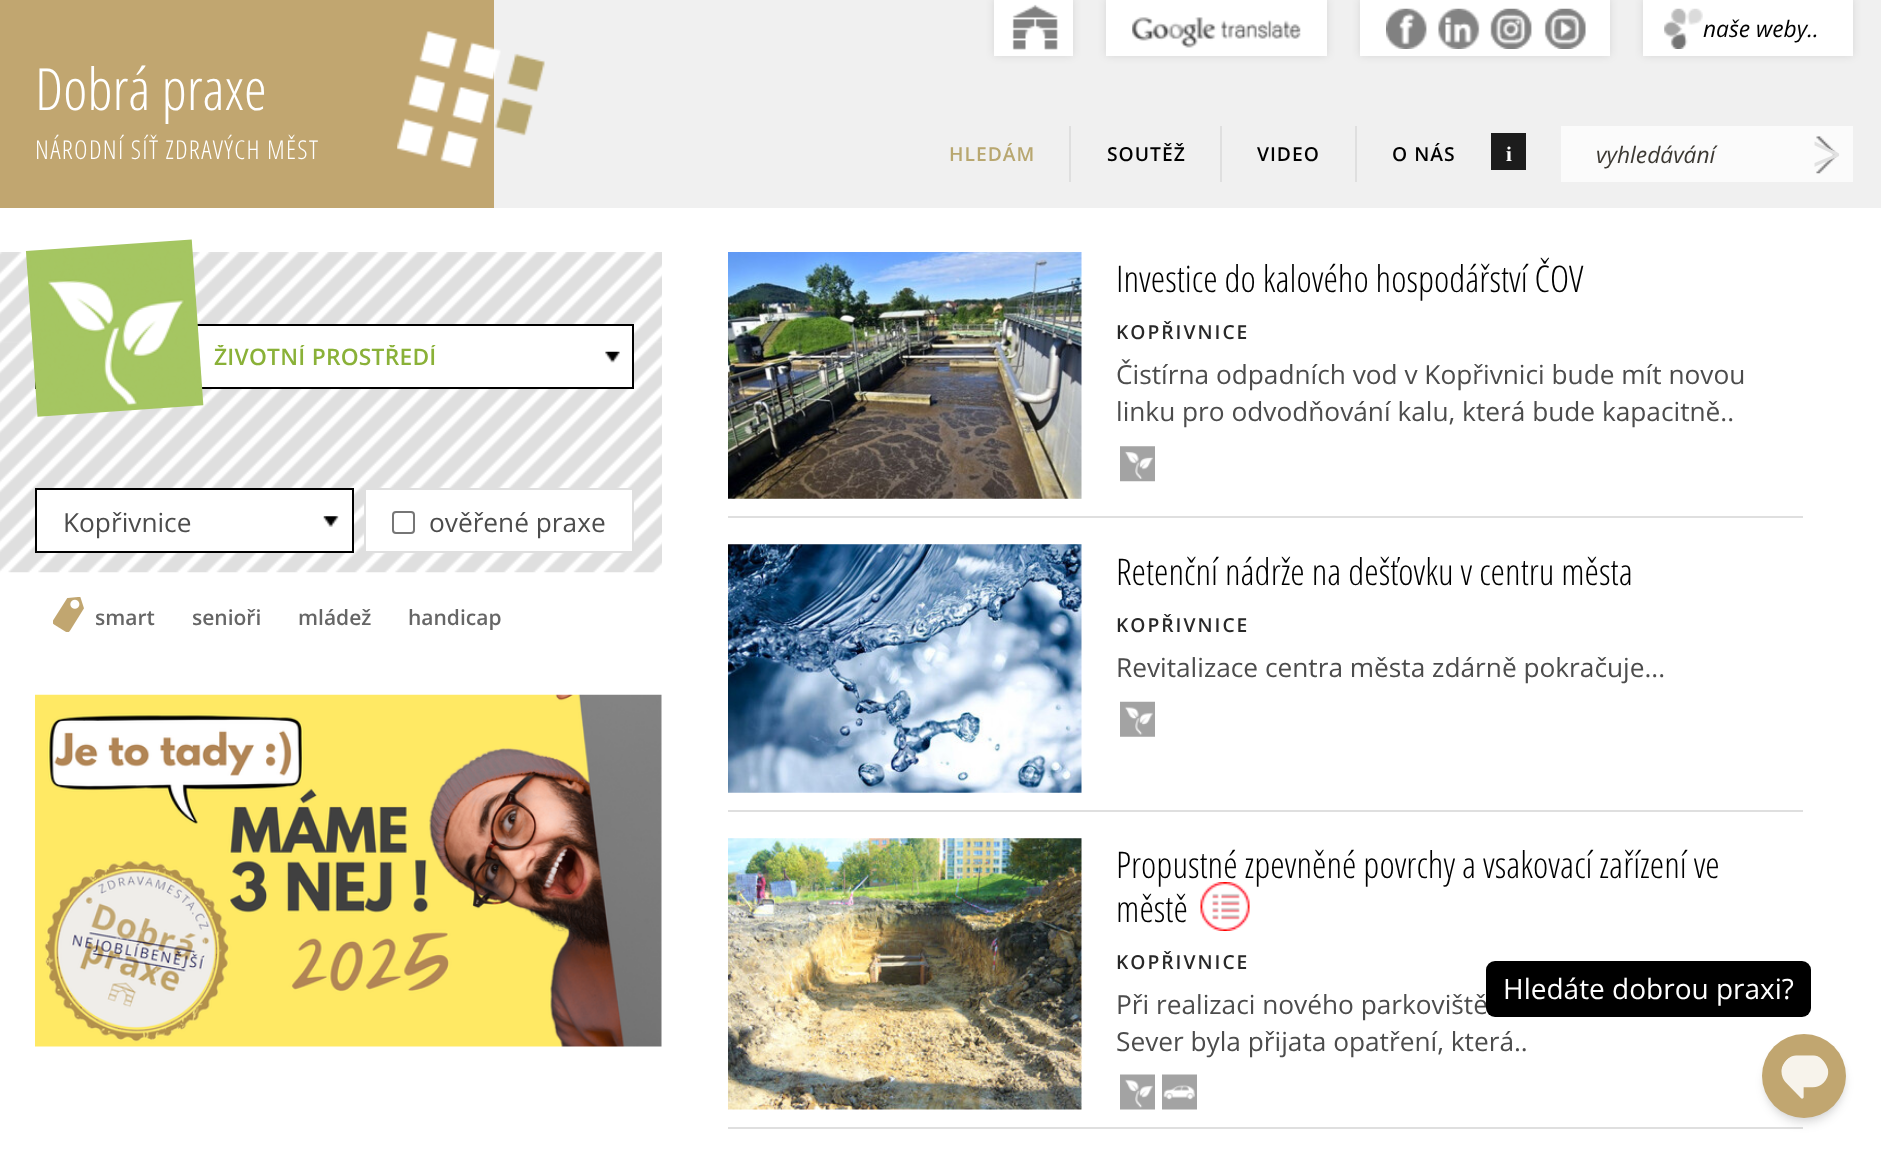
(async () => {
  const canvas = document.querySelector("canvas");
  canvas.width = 1881;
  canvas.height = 1153;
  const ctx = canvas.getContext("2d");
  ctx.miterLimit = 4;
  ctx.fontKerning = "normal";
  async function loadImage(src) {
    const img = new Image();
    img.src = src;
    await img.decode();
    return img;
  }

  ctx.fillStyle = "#f0f0f0";
  ctx.fillRect(0, 0, 1881, 1153);
  ctx.fillStyle = "rgba(0, 0, 0, 0.1)";
  ctx.filter = "blur(4.5px)";
  ctx.beginPath();
  ctx.rect(994, -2, 79, 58);
  ctx.fill();
  ctx.filter = "none";
  ctx.fillStyle = "#ffffff";
  ctx.fillRect(994, 0, 79, 56);
  ctx.drawImage(await loadImage("img/1.png"), 1012, 4, 46, 46);
  ctx.fillStyle = "rgba(0, 0, 0, 0.1)";
  ctx.filter = "blur(4.5px)";
  ctx.beginPath();
  ctx.rect(1106, -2, 221, 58);
  ctx.fill();
  ctx.filter = "none";
  ctx.fillStyle = "#ffffff";
  ctx.fillRect(1106, 0, 221, 56);
  ctx.drawImage(await loadImage("img/2.png"), 1132, 17, 169, 31);
  ctx.fillStyle = "rgba(0, 0, 0, 0.1)";
  ctx.filter = "blur(4.5px)";
  ctx.beginPath();
  ctx.rect(1360, -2, 250, 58);
  ctx.fill();
  ctx.filter = "none";
  ctx.fillStyle = "#ffffff";
  ctx.fillRect(1360, 0, 250, 56);
  ctx.drawImage(await loadImage("img/3.png"), 1386, 8, 200, 41);
  ctx.fillStyle = "rgba(0, 0, 0, 0.1)";
  ctx.filter = "blur(4.5px)";
  ctx.beginPath();
  ctx.rect(1643, -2, 210, 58);
  ctx.fill();
  ctx.filter = "none";
  ctx.fillStyle = "#ffffff";
  ctx.fillRect(1643, 0, 210, 56);
  ctx.drawImage(await loadImage("img/4.png"), 1664, 8, 39, 41);
  ctx.fillStyle = "#c1a670";
  ctx.fillRect(0, 0, 494, 208);
  ctx.drawImage(await loadImage("img/5.png"), 397, 31, 148, 137);
  for (const [x, y, w, h, color] of [
    [1069, 126, 2, 56, "#dfdfdf"],
    [1220, 126, 2, 56, "#dfdfdf"],
    [1355, 126, 2, 56, "#dfdfdf"],
    [1491, 133, 35, 37, "#1c1c1c"],
    [1561, 126, 292, 56, "#fbfbfb"],
  ]) {
    ctx.fillStyle = color;
    ctx.fillRect(x, y, w, h);
  }
  ctx.drawImage(await loadImage("img/6.png"), 1816, 136, 22, 38);
  ctx.fillStyle = "#ffffff";
  ctx.fillRect(0, 208, 1881, 945);
  ctx.drawImage(await loadImage("img/7.png"), 0, 252, 662, 321);
  ctx.fillRect(197, 326, 435, 61);
  ctx.strokeStyle = "#000000";
  ctx.lineWidth = 2;
  ctx.strokeRect(36, 325, 597, 63);
  ctx.drawImage(await loadImage("img/8.png"), 25, 239, 179, 178);
  ctx.drawImage(await loadImage("img/9.png"), 605, 351, 15, 12);
  ctx.fillRect(37, 490, 315, 61);
  ctx.drawImage(await loadImage("img/10.png"), 323, 516, 16, 11);
  ctx.strokeRect(36, 489, 317, 63);
  ctx.beginPath();
  ctx.rect(365, 489, 268, 63);
  ctx.fill();
  ctx.strokeStyle = "#dfdfdf";
  ctx.stroke();
  ctx.beginPath();
  ctx.roundRect(393, 512, 21, 21, 3);
  ctx.strokeStyle = "#767676";
  ctx.stroke();
  ctx.drawImage(await loadImage("img/11.png"), 53, 597, 31, 35);
  ctx.drawImage(await loadImage("img/12.png"), 35, 694, 627, 353);
  ctx.drawImage(await loadImage("img/13.png"), 728, 252, 354, 247);
  ctx.drawImage(await loadImage("img/14.png"), 1120, 446, 35, 36);
  ctx.fillStyle = "#dfdfdf";
  ctx.fillRect(728, 516, 1075, 2);
  ctx.drawImage(await loadImage("img/15.png"), 728, 544, 354, 249);
  ctx.drawImage(await loadImage("img/16.png"), 1120, 701, 35, 36);
  ctx.fillRect(728, 810, 1075, 2);
  ctx.drawImage(await loadImage("img/17.png"), 728, 838, 354, 272);
  ctx.drawImage(await loadImage("img/19.png"), 1120, 1074, 35, 36);
  ctx.drawImage(await loadImage("img/20.png"), 1162, 1074, 35, 36);
  ctx.fillRect(728, 1127, 1075, 2);
  ctx.fillStyle = "rgba(0, 0, 0, 0.1)";
  ctx.filter = "blur(3.5px)";
  ctx.beginPath();
  ctx.roundRect(1766, 1041, 77, 77, 38.5);
  ctx.fill();
  ctx.filter = "none";
  ctx.filter = "blur(5px)";
  ctx.beginPath();
  ctx.roundRect(1764, 1043, 81, 81, 40.5);
  ctx.fill();
  ctx.filter = "none";
  ctx.fillStyle = "#c1a670";
  ctx.beginPath();
  ctx.arc(1804, 1076, 42, 0, Math.PI * 2);
  ctx.fill();
  ctx.drawImage(await loadImage("img/21.png"), 1781, 1055, 48, 44);
  ctx.font = "italic 22.75px Open Sans";
  ctx.fillStyle = "#a9a9a9";
  ctx.fillText(".", 1145, 37);
  ctx.fillStyle = "#000000";
  ctx.fillText("naše weby..", 1703, 37);
  ctx.font = "300 58px Open Sans Condensed";
  ctx.fillStyle = "#ffffff";
  ctx.fillText("Dobrá praxe", 35, 110);
  ctx.letterSpacing = "1.3px";
  ctx.font = "300 26px Open Sans Condensed";
  ctx.fillText("NÁRODNÍ SÍŤ ZDRAVÝCH MĚST", 35, 159);
  ctx.letterSpacing = "1px";
  ctx.font = "600 19.25px Open Sans";
  ctx.fillStyle = "#b8a770";
  ctx.fillText("HLEDÁM", 949, 161);
  ctx.fillStyle = "#000000";
  for (const [text, x, y] of [
    ["SOUTĚŽ", 1107, 161],
    ["VIDEO", 1257, 161],
    ["O NÁS", 1392, 161],
  ]) {
    ctx.fillText(text, x, y);
  }
  ctx.letterSpacing = "0px";
  ctx.font = "bold 21px Liberation Serif";
  ctx.fillStyle = "#ffffff";
  ctx.fillText("i", 1506, 161);
  ctx.font = "italic 22.75px Open Sans";
  ctx.fillStyle = "#3c3933";
  ctx.fillText("vyhledávání", 1596, 163);
  ctx.font = "52px Open Sans";
  ctx.fillStyle = "#e1e1e1";
  ctx.fillText(">", 1812, 173);
  ctx.save();
  ctx.beginPath();
  ctx.rect(63, 345, 373, 24);
  ctx.clip();
  ctx.letterSpacing = "0.25px";
  ctx.font = "600 22.75px Open Sans";
  ctx.fillStyle = "#8ab138";
  ctx.fillText("ŽIVOTNÍ PROSTŘEDÍ", 214, 365);
  ctx.restore();
  ctx.font = "26.25px Open Sans";
  ctx.fillStyle = "#4c4c4c";
  ctx.fillText("Kopřivnice", 63, 532);
  ctx.fillText("ověřené praxe", 429, 532);
  ctx.font = "600 21px Open Sans";
  ctx.fillStyle = "#666666";
  for (const [text, x, y] of [
    ["smart", 95, 625],
    ["senioři", 192, 625],
    ["mládež", 298, 625],
    ["handicap", 408, 625],
  ]) {
    ctx.fillText(text, x, y);
  }
  ctx.font = "300 36.75px Open Sans Condensed";
  ctx.fillStyle = "#000000";
  ctx.fillText("Investice do kalového hospodářství ČOV", 1116, 292);
  ctx.letterSpacing = "2px";
  ctx.font = "600 19.25px Open Sans";
  ctx.fillStyle = "#282828";
  ctx.fillText("KOPŘIVNICE", 1116, 339);
  ctx.letterSpacing = "0px";
  ctx.font = "26.25px Open Sans";
  ctx.fillStyle = "#4c4c4c";
  ctx.fillText("Čistírna odpadních vod v Kopřivnici bude mít novou", 1116, 384);
  ctx.fillText("linku pro odvodňování kalu, která bude kapacitně..", 1116, 421);
  ctx.font = "300 36.75px Open Sans Condensed";
  ctx.fillStyle = "#000000";
  ctx.fillText("Retenční nádrže na dešťovku v centru města", 1116, 585);
  ctx.letterSpacing = "2px";
  ctx.font = "600 19.25px Open Sans";
  ctx.fillStyle = "#282828";
  ctx.fillText("KOPŘIVNICE", 1116, 632);
  ctx.letterSpacing = "0px";
  ctx.font = "26.25px Open Sans";
  ctx.fillStyle = "#4c4c4c";
  ctx.fillText("Revitalizace centra města zdárně pokračuje...", 1116, 677);
  ctx.font = "300 36.75px Open Sans Condensed";
  ctx.fillStyle = "#000000";
  ctx.fillText("Propustné zpevněné povrchy a vsakovací zařízení ve", 1116, 878);
  ctx.fillText("městě", 1116, 922);
  ctx.drawImage(await loadImage("img/18.png"), 1200, 882, 50, 49);
  ctx.letterSpacing = "2px";
  ctx.font = "600 19.25px Open Sans";
  ctx.fillStyle = "#282828";
  ctx.fillText("KOPŘIVNICE", 1116, 969);
  ctx.letterSpacing = "0px";
  ctx.font = "26.25px Open Sans";
  ctx.fillStyle = "#4c4c4c";
  ctx.fillText("Při realizaci nového parkoviště", 1116, 1014);
  ctx.fillText("Sever byla přijata opatření, která..", 1116, 1051);
  ctx.fillStyle = "#000000";
  ctx.beginPath();
  ctx.roundRect(1486, 961, 325, 56, 9);
  ctx.fill();
  ctx.font = "28px Open Sans";
  ctx.fillStyle = "#ffffff";
  ctx.fillText("Hledáte dobrou praxi?", 1503, 999);
})();
